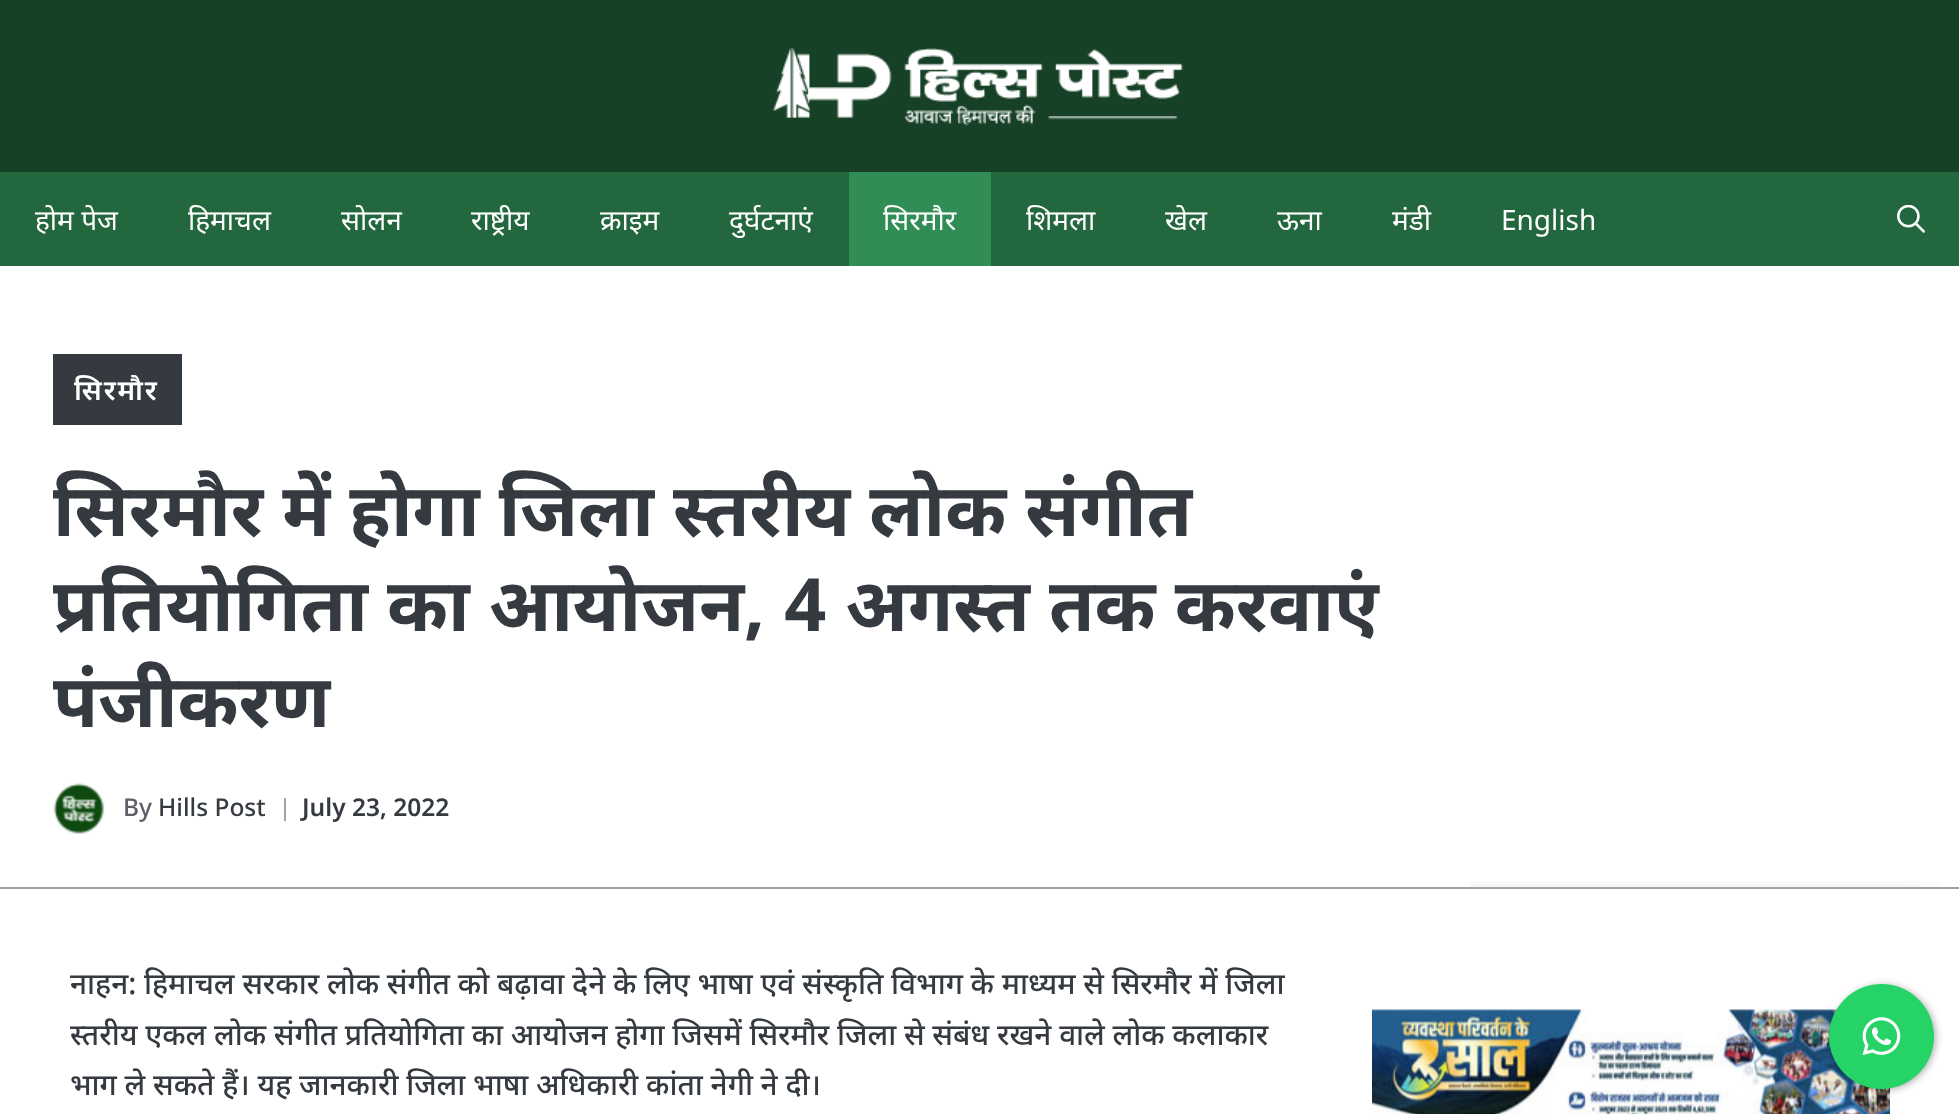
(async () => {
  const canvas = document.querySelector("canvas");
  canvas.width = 1959;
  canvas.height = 1114;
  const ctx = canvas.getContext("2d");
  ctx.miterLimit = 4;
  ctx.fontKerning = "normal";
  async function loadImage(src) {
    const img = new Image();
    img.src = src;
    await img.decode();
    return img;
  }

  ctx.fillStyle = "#ffffff";
  ctx.fillRect(0, 0, 1959, 1114);
  ctx.fillStyle = "#164127";
  ctx.fillRect(0, 0, 1959, 172);
  ctx.drawImage(await loadImage("img/1.png"), 772, 48, 411, 78);
  ctx.fillStyle = "#23673e";
  ctx.fillRect(0, 172, 1959, 94);
  ctx.fillStyle = "#308d55";
  ctx.fillRect(849, 172, 142, 94);
  ctx.drawImage(await loadImage("img/2.png"), 1897, 205, 28, 28);
  ctx.save();
  ctx.beginPath();
  ctx.rect(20, 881, 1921, 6);
  ctx.clip();
  ctx.fillStyle = "rgba(0, 0, 0, 0.3)";
  ctx.filter = "blur(17.5px)";
  ctx.beginPath();
  ctx.rect(18, 907, 1925, 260);
  ctx.fill();
  ctx.filter = "none";
  ctx.restore();
  for (const [x, y, w, h, color] of [
    [0, 887, 1959, 2, "#a0a1ad"],
    [9, 876, 1461, 11, "rgba(255, 255, 255, 0.9)"],
    [53, 354, 129, 71, "#343a40"],
  ]) {
    ctx.fillStyle = color;
    ctx.fillRect(x, y, w, h);
  }
  ctx.drawImage(await loadImage("img/3.png"), 53, 783, 52, 52);
  ctx.fillStyle = "#a0a1ad";
  ctx.fillRect(284, 798, 2, 23);
  ctx.drawImage(await loadImage("img/4.png"), 1372, 1009, 518, 105);
  ctx.fillStyle = "rgba(0, 0, 0, 0.3)";
  ctx.filter = "blur(3.5px)";
  ctx.beginPath();
  ctx.roundRect(1831, 985, 105, 105, 52.5);
  ctx.fill();
  ctx.filter = "none";
  ctx.fillStyle = "#25d366";
  ctx.beginPath();
  ctx.arc(1881.5, 1036.5, 52.5, 0, Math.PI * 2);
  ctx.fill();
  ctx.drawImage(await loadImage("img/5.png"), 1862, 1017, 39, 39);
  ctx.font = "28px Noto Sans";
  ctx.fillStyle = "#ffffff";
  for (const [text, x, y] of [
    ["होम पेज", 35, 230],
    ["हिमाचल", 188, 230],
    ["सोलन", 341, 230],
    ["राष्ट्रीय", 471, 230],
    ["क्राइम", 600, 230],
    ["दुर्घटनाएं", 729, 230],
    ["सिरमौर", 883, 230],
    ["शिमला", 1026, 230],
    ["खेल", 1165, 230],
    ["ऊना", 1277, 230],
    ["मंडी", 1392, 230],
    ["English", 1501, 230],
  ]) {
    ctx.fillText(text, x, y);
  }
  ctx.letterSpacing = "1.75px";
  ctx.font = "600 28px Noto Sans";
  ctx.fillText("सिरमौर", 74, 400);
  ctx.letterSpacing = "0px";
  ctx.font = "bold 73.5px Noto Sans";
  ctx.fillStyle = "#343a40";
  for (const [text, x, y] of [
    ["सिरमौर में होगा जिला स्तरीय लोक संगीत", 53, 536],
    ["प्रतियोगिता का आयोजन, 4 अगस्त तक करवाएं", 53, 631],
    ["पंजीकरण", 53, 727],
  ]) {
    ctx.fillText(text, x, y);
  }
  ctx.font = "500 24.5px Noto Sans";
  ctx.fillStyle = "#5e5e69";
  ctx.fillText("By", 123, 816);
  ctx.fillStyle = "#343a40";
  ctx.fillText("Hills Post", 158, 816);
  ctx.font = "600 24.5px Noto Sans";
  ctx.fillText("July 23, 2022", 302, 816);
  ctx.font = "500 29.75px Noto Sans";
  for (const [text, x, y] of [
    ["नाहन: हिमाचल सरकार लोक संगीत को बढ़ावा देने के लिए भाषा एवं संस्कृति विभाग के माध्यम से सिरमौर में जिला", 70, 994],
    ["स्तरीय एकल लोक संगीत प्रतियोगिता का आयोजन होगा जिसमें सिरमौर जिला से संबंध रखने वाले लोक कलाकार", 70, 1045],
    ["भाग ले सकते हैं। यह जानकारी जिला भाषा अधिकारी कांता नेगी ने दी।", 70, 1095],
  ]) {
    ctx.fillText(text, x, y);
  }
})();
